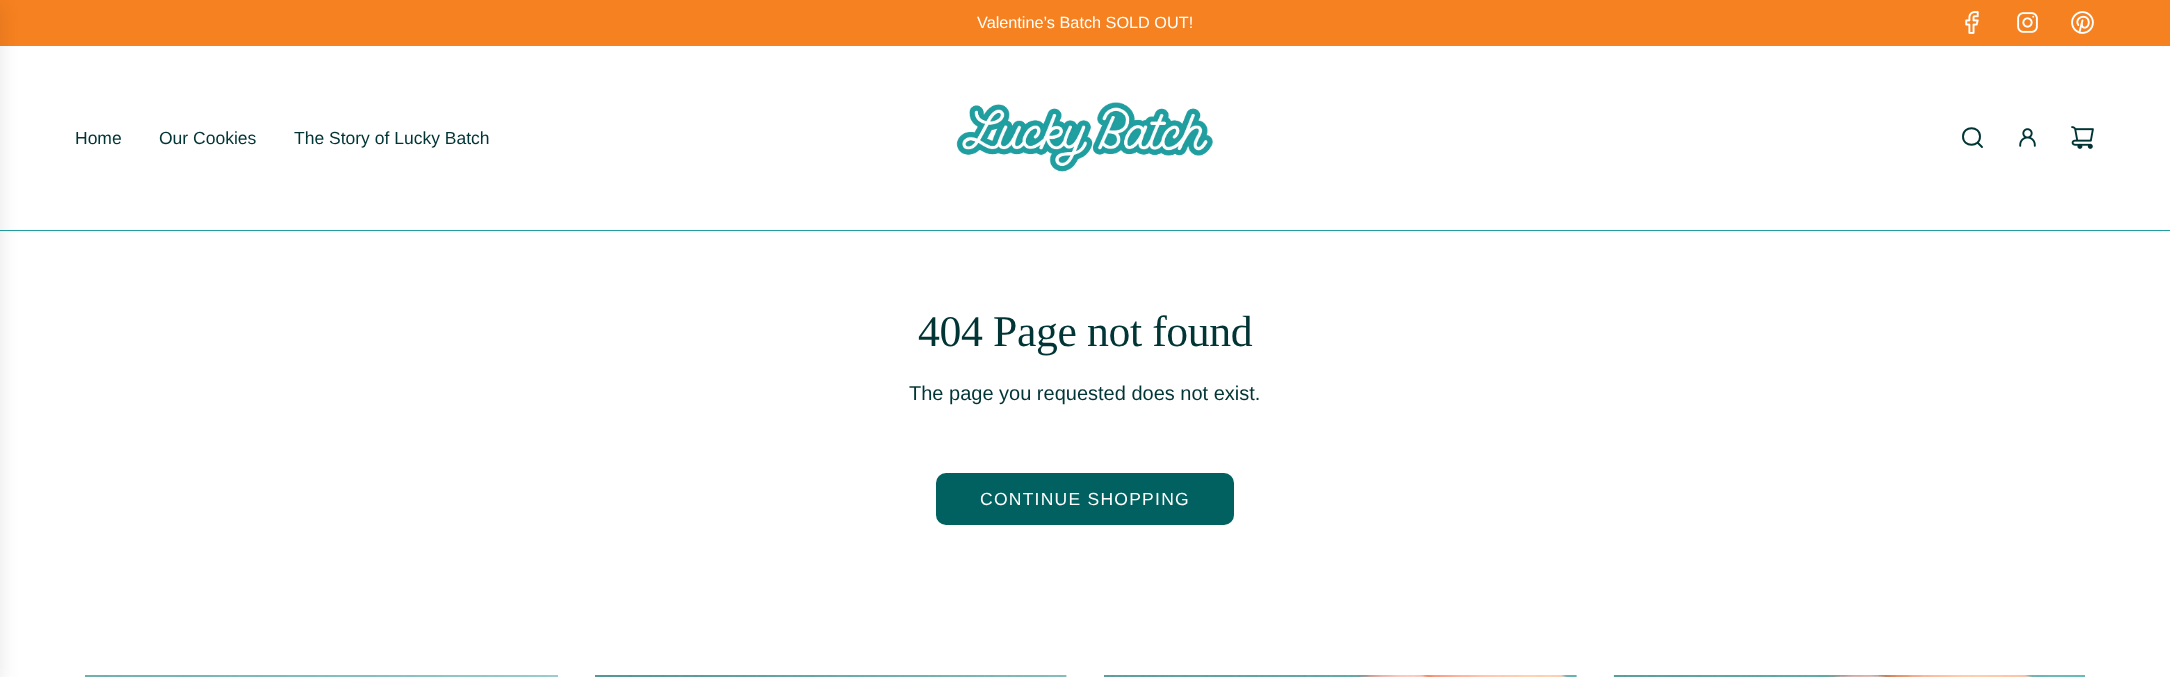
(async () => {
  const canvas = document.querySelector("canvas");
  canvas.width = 2170;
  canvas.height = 677;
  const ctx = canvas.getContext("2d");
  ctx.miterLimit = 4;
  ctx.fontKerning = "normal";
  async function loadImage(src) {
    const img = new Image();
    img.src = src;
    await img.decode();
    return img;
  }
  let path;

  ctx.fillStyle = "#ffffff";
  ctx.fillRect(0, 0, 2170, 677);
  ctx.fillStyle = "#f58120";
  ctx.fillRect(0, 0, 2170, 46);
  ctx.drawImage(await loadImage("img/1.png"), 1965, 11, 14, 23);
  ctx.drawImage(await loadImage("img/2.png"), 2017, 12, 21, 21);
  ctx.drawImage(await loadImage("img/3.png"), 2071, 11, 23, 23);
  ctx.fillStyle = "#209ea0";
  ctx.fillRect(0, 230, 2170, 1);
  ctx.fillStyle = "rgba(0, 0, 0, 0.1)";
  ctx.filter = "blur(9.5px)";
  ctx.beginPath();
  ctx.rect(-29, 6, 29, 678);
  ctx.fill();
  ctx.filter = "none";
  ctx.drawImage(await loadImage("img/4.png"), 956, 102, 257, 70);
  path = new Path2D("M1977.5 142.5L1982 147M1963 136.5C1963 147.5 1980 147.5 1980 136.5C1980 125.5 1963 125.5 1963 136.5Z");
  ctx.strokeStyle = "#003435";
  ctx.lineWidth = 1.9;
  ctx.lineCap = "round";
  ctx.lineJoin = "round";
  ctx.stroke(path);
  ctx.drawImage(await loadImage("img/5.png"), 2019, 128, 17, 19);
  ctx.drawImage(await loadImage("img/6.png"), 2071, 126, 23, 23);
  ctx.fillStyle = "#016060";
  ctx.beginPath();
  ctx.roundRect(936, 473, 298, 52, 10);
  ctx.fill();
  ctx.drawImage(await loadImage("img/7.png"), 85, 675, 473, 2);
  ctx.drawImage(await loadImage("img/8.png"), 595, 675, 472, 2);
  ctx.drawImage(await loadImage("img/9.png"), 1104, 675, 473, 2);
  ctx.drawImage(await loadImage("img/10.png"), 1613, 675, 472, 2);
  ctx.font = "16.25px Liberation Sans";
  ctx.fillStyle = "#ffffff";
  ctx.fillText("Valentine’s Batch SOLD OUT!", 977, 28);
  ctx.font = "17.5px Liberation Sans";
  ctx.fillStyle = "#003435";
  for (const [text, x, y] of [
    ["Home", 75, 144],
    ["Our Cookies", 159, 144],
    ["The Story of Lucky Batch", 294, 144],
  ]) {
    ctx.fillText(text, x, y);
  }
  ctx.letterSpacing = "-0.4px";
  ctx.font = "43.75px Liberation Serif";
  ctx.fillText("404 Page not found", 918, 346);
  ctx.letterSpacing = "0px";
  ctx.font = "20px Liberation Sans";
  ctx.fillText("The page you requested does not exist.", 909, 400);
  ctx.letterSpacing = "1.25px";
  ctx.font = "17.5px Liberation Sans";
  ctx.fillStyle = "#ffffff";
  ctx.fillText("CONTINUE SHOPPING", 980, 505);
})();
